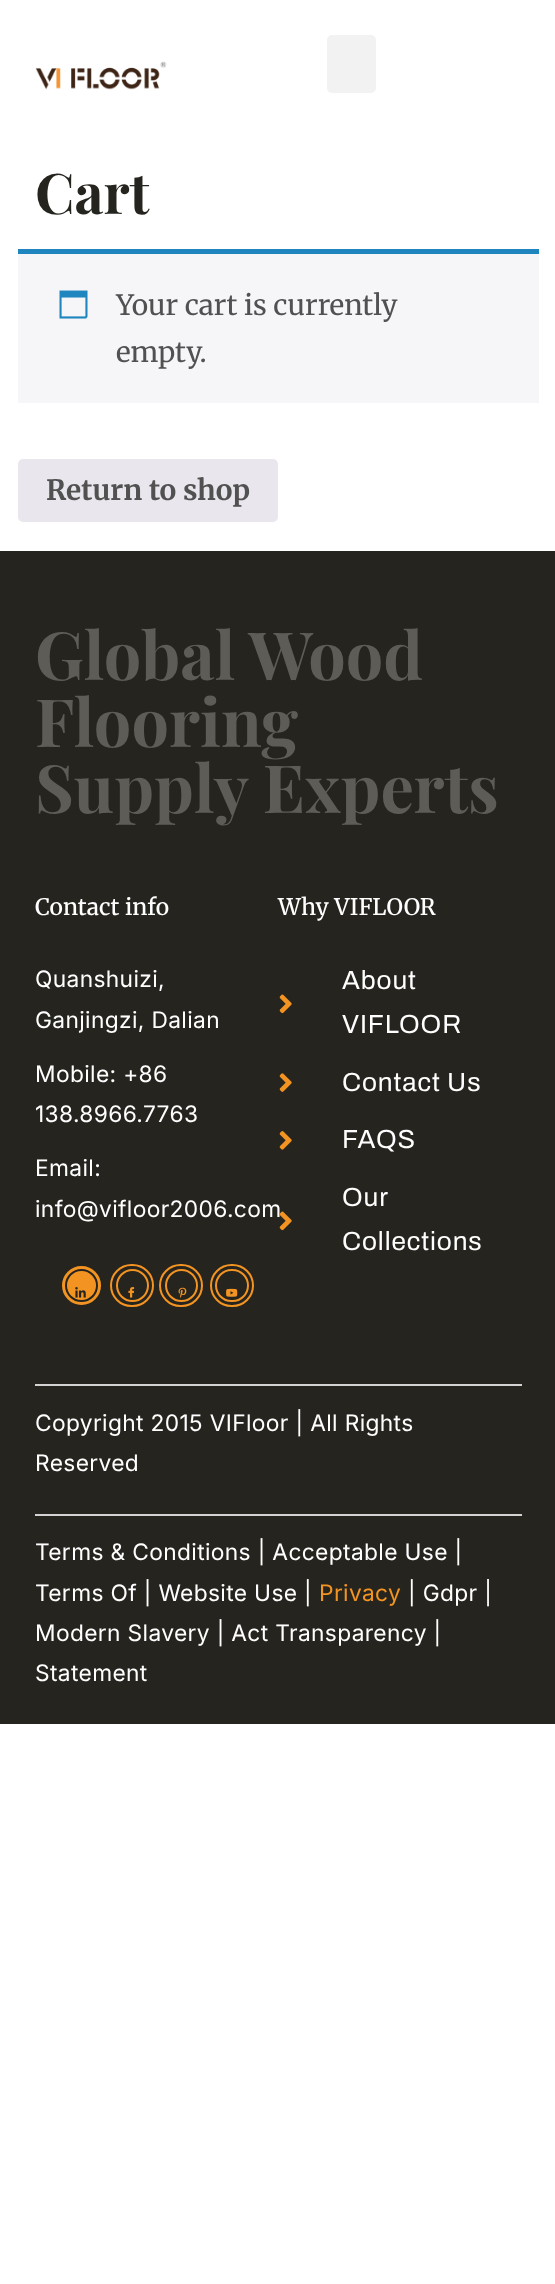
(async () => {
  const canvas = document.querySelector("canvas");
  canvas.width = 555;
  canvas.height = 2284;
  const ctx = canvas.getContext("2d");
  ctx.miterLimit = 4;
  ctx.fontKerning = "normal";
  async function loadImage(src) {
    const img = new Image();
    img.src = src;
    await img.decode();
    return img;
  }

  ctx.fillStyle = "#ffffff";
  ctx.fillRect(0, 0, 555, 2284);
  ctx.drawImage(await loadImage("img/1.png"), 35, 61, 132, 29);
  ctx.fillStyle = "#f2f2f2";
  ctx.beginPath();
  ctx.roundRect(327, 35, 49, 58, 5);
  ctx.fill();
  ctx.fillStyle = "#f6f5f8";
  ctx.fillRect(18, 254, 521, 149);
  ctx.fillStyle = "#1e85be";
  ctx.fillRect(18, 249, 521, 5);
  ctx.drawImage(await loadImage("img/2.png"), 59, 290, 29, 29);
  ctx.fillStyle = "#e9e6ed";
  ctx.beginPath();
  ctx.roundRect(18, 459, 260, 63, 5);
  ctx.fill();
  ctx.fillStyle = "#25241f";
  ctx.fillRect(0, 551, 555, 1173);
  ctx.fillStyle = "#f39422";
  ctx.beginPath();
  ctx.arc(81.5, 1285.5, 20.5, 0, Math.PI * 2);
  ctx.fill();
  ctx.strokeStyle = "#25241f";
  ctx.lineWidth = 2;
  ctx.stroke();
  ctx.beginPath();
  ctx.arc(81.5, 1285.5, 15.5, 0, Math.PI * 2);
  ctx.stroke();
  ctx.drawImage(await loadImage("img/3.png"), 75, 1287, 11, 11);
  ctx.beginPath();
  ctx.roundRect(111, 1265, 42, 41, 20.5);
  ctx.strokeStyle = "#f39422";
  ctx.stroke();
  ctx.beginPath();
  ctx.arc(132.5, 1285.5, 15.5, 0, Math.PI * 2);
  ctx.stroke();
  ctx.drawImage(await loadImage("img/4.png"), 128, 1287, 7, 11);
  ctx.beginPath();
  ctx.roundRect(160, 1265, 42, 41, 20.5);
  ctx.stroke();
  ctx.beginPath();
  ctx.arc(181.5, 1285.5, 15.5, 0, Math.PI * 2);
  ctx.stroke();
  ctx.drawImage(await loadImage("img/5.png"), 178, 1287, 9, 11);
  ctx.beginPath();
  ctx.roundRect(211, 1265, 42, 41, 20.5);
  ctx.stroke();
  ctx.beginPath();
  ctx.roundRect(216, 1270, 32, 31, 15.5);
  ctx.stroke();
  ctx.drawImage(await loadImage("img/6.png"), 226, 1288, 12, 9);
  ctx.drawImage(await loadImage("img/7.png"), 279, 994, 13, 20);
  ctx.drawImage(await loadImage("img/8.png"), 279, 1073, 13, 19);
  ctx.drawImage(await loadImage("img/9.png"), 279, 1131, 13, 19);
  ctx.fillStyle = "#d3d3d3";
  ctx.fillRect(35, 1384, 487, 2);
  ctx.fillRect(35, 1514, 487, 2);
  ctx.font = "bold 56px Playfair Display";
  ctx.fillStyle = "#25241f";
  ctx.fillText("Cart", 35, 214);
  ctx.font = "28px Merriweather";
  ctx.fillStyle = "#515151";
  ctx.fillText("Your cart is currently", 116, 315);
  ctx.fillText("empty.", 116, 362);
  ctx.font = "bold 28px Merriweather";
  ctx.fillText("Return to shop", 46, 500);
  ctx.font = "bold 66.5px Playfair Display";
  ctx.fillStyle = "#5e5c57";
  for (const [text, x, y] of [
    ["Global Wood", 35, 680],
    ["Flooring", 35, 747],
    ["Supply Experts", 35, 813],
  ]) {
    ctx.fillText(text, x, y);
  }
  ctx.font = "500 22.75px Merriweather";
  ctx.fillStyle = "#ffffff";
  ctx.fillText("Contact info", 35, 915);
  ctx.letterSpacing = "0.35px";
  ctx.font = "22.75px Inter";
  for (const [text, x, y] of [
    ["Quanshuizi,", 35, 987],
    ["Ganjingzi, Dalian", 35, 1028],
    ["Mobile: +86", 35, 1082],
    ["138.8966.7763", 35, 1122],
    ["Email:", 35, 1176],
    ["info@vifloor2006.com", 35, 1217],
  ]) {
    ctx.fillText(text, x, y);
  }
  ctx.letterSpacing = "0px";
  ctx.font = "500 22.75px Merriweather";
  ctx.fillText("Why VIFLOOR", 278, 915);
  ctx.letterSpacing = "0.9px";
  ctx.font = "26.25px Archivo";
  for (const [text, x, y] of [
    ["About", 342, 989],
    ["VIFLOOR", 342, 1033],
    ["Contact Us", 342, 1091],
    ["FAQS", 342, 1148],
  ]) {
    ctx.fillText(text, x, y);
  }
  ctx.drawImage(await loadImage("img/10.png"), 279, 1211, 13, 20);
  ctx.fillText("Our", 342, 1206);
  ctx.fillText("Collections", 342, 1250);
  ctx.letterSpacing = "0.35px";
  ctx.font = "22.75px Inter";
  for (const [text, x, y] of [
    ["Copyright 2015 VIFloor | All Rights", 35, 1431],
    ["Reserved", 35, 1471],
    ["Terms & Conditions | Acceptable Use |", 35, 1560],
    ["Terms Of | Website Use |", 35, 1601],
  ]) {
    ctx.fillText(text, x, y);
  }
  ctx.fillStyle = "#f39422";
  ctx.fillText("Privacy", 319, 1601);
  ctx.fillStyle = "#ffffff";
  for (const [text, x, y] of [
    ["| Gdpr |", 408, 1601],
    ["Modern Slavery | Act Transparency |", 35, 1641],
    ["Statement", 35, 1681],
  ]) {
    ctx.fillText(text, x, y);
  }
})();
